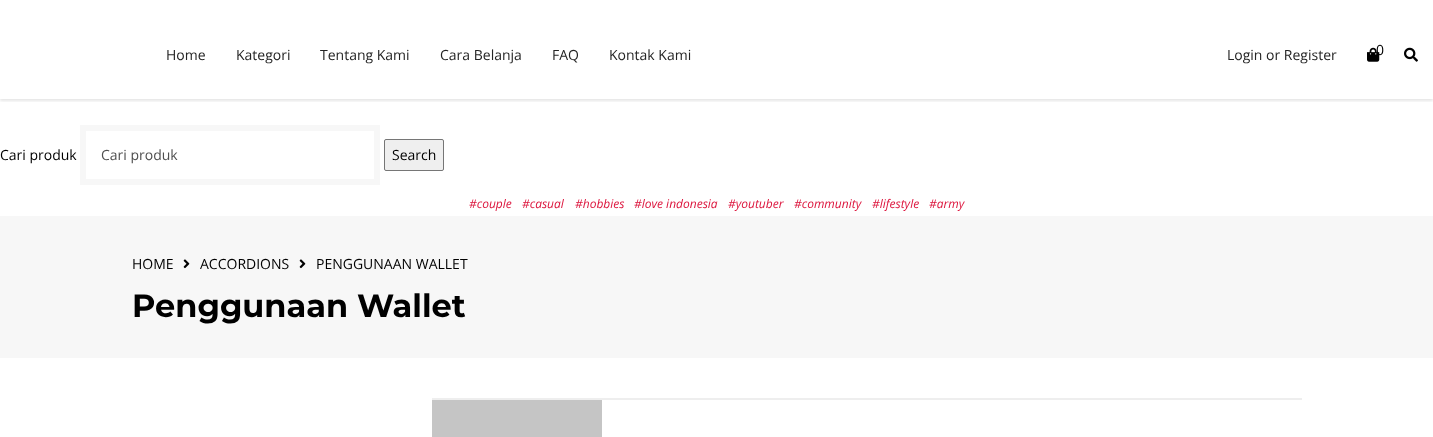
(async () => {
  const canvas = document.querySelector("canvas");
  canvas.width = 1433;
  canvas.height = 437;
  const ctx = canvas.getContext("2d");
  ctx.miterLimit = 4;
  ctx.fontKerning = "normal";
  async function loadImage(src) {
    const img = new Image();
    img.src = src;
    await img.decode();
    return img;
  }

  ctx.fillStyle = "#ffffff";
  ctx.fillRect(0, 0, 1433, 437);
  ctx.save();
  ctx.beginPath();
  ctx.rect(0, 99, 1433, 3);
  ctx.clip();
  ctx.fillStyle = "rgba(0, 0, 0, 0.1)";
  ctx.filter = "blur(1.5px)";
  ctx.beginPath();
  ctx.rect(0, 2, 1433, 99);
  ctx.fill();
  ctx.filter = "none";
  ctx.restore();
  ctx.drawImage(await loadImage("img/1.png"), 1367, 47, 13, 15);
  ctx.drawImage(await loadImage("img/2.png"), 1404, 47, 14, 15);
  ctx.strokeStyle = "#f7f7f7";
  ctx.lineWidth = 6;
  ctx.strokeRect(83, 128, 294, 54);
  ctx.fillStyle = "#efefef";
  ctx.beginPath();
  ctx.roundRect(384.5, 139.5, 59, 31, 1.5);
  ctx.fill();
  ctx.strokeStyle = "#767676";
  ctx.lineWidth = 1;
  ctx.stroke();
  ctx.fillStyle = "#f7f7f7";
  ctx.fillRect(0, 216, 1433, 142);
  ctx.drawImage(await loadImage("img/3.png"), 183, 259, 7, 10);
  ctx.drawImage(await loadImage("img/3.png"), 299, 259, 7, 10);
  ctx.fillStyle = "#eeeeee";
  ctx.fillRect(432, 398, 870, 2);
  ctx.fillStyle = "#c5c5c5";
  ctx.fillRect(432, 400, 170, 37);
  ctx.font = "14px Open Sans";
  ctx.fillStyle = "#242424";
  for (const [text, x, y] of [
    ["Home", 166, 60],
    ["Kategori", 236, 60],
    ["Tentang Kami", 320, 60],
    ["Cara Belanja", 440, 60],
    ["FAQ", 552, 60],
    ["Kontak Kami", 609, 60],
    ["Login or Register", 1227, 60],
  ]) {
    ctx.fillText(text, x, y);
  }
  ctx.fillStyle = "#000000";
  ctx.fillText("0", 1376, 55);
  ctx.fillText("Cari produk", 0, 160);
  ctx.fillStyle = "#4f4f4f";
  ctx.fillText("Cari produk", 101, 160);
  ctx.fillStyle = "#000000";
  ctx.fillText("Search", 392, 160);
  ctx.font = "italic 12px Open Sans";
  ctx.fillStyle = "#dc143c";
  for (const [text, x, y] of [
    ["#couple", 469, 208],
    ["#casual", 522, 208],
    ["#hobbies", 575, 208],
    ["#love indonesia", 634, 208],
    ["#youtuber", 728, 208],
    ["#community", 794, 208],
    ["#lifestyle", 872, 208],
    ["#army", 929, 208],
  ]) {
    ctx.fillText(text, x, y);
  }
  ctx.font = "14px Open Sans";
  ctx.fillStyle = "#000000";
  for (const [text, x, y] of [
    ["HOME", 132, 269],
    ["ACCORDIONS", 200, 269],
    ["PENGGUNAAN WALLET", 316, 269],
  ]) {
    ctx.fillText(text, x, y);
  }
  ctx.font = "bold 32px Montserrat";
  ctx.fillText("Penggunaan Wallet", 132, 317);
})();
